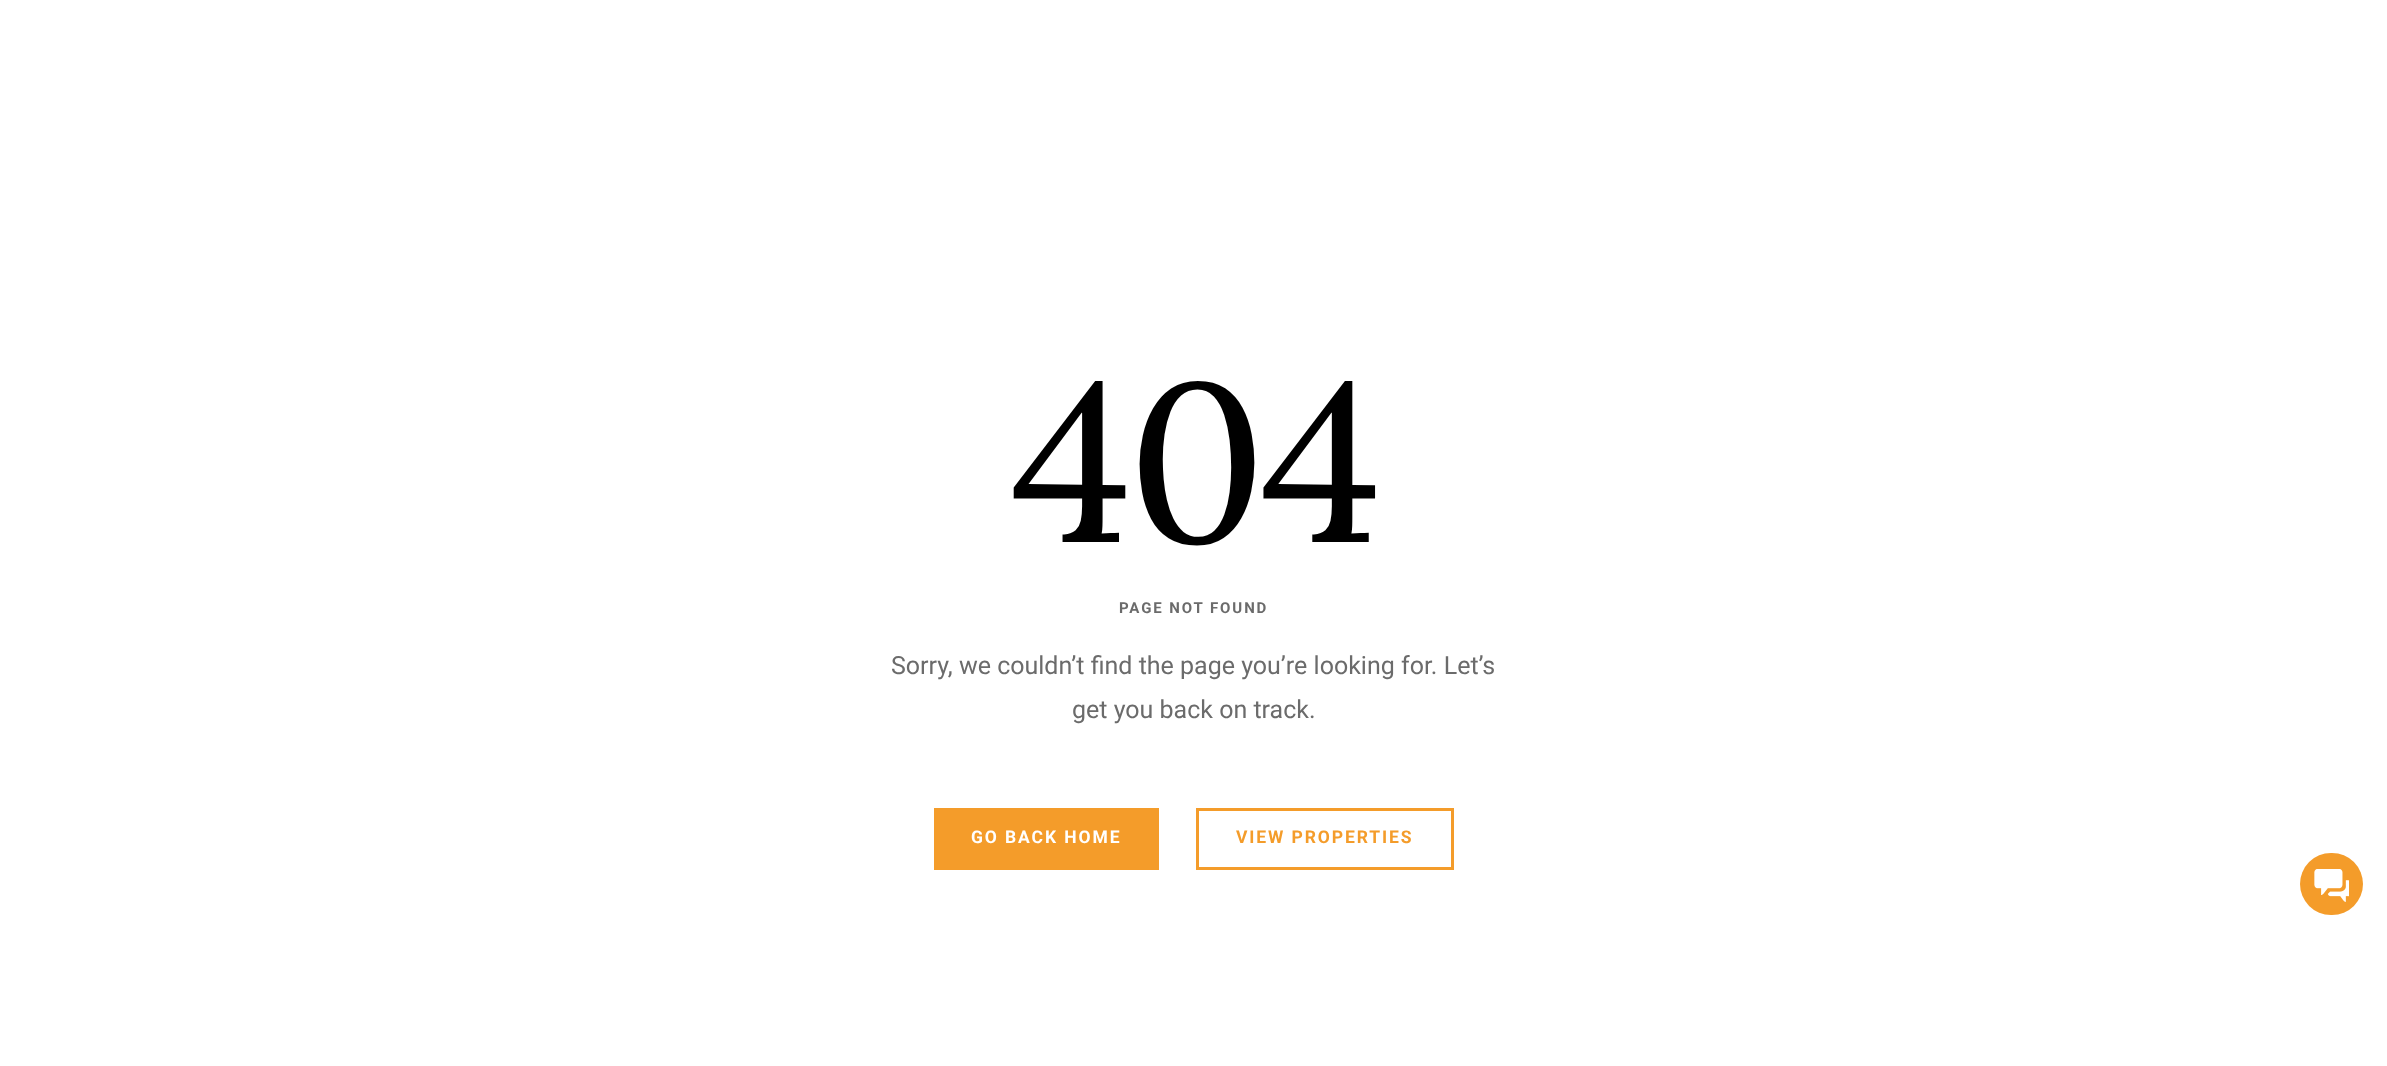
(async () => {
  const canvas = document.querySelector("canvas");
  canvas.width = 2387;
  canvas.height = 1066;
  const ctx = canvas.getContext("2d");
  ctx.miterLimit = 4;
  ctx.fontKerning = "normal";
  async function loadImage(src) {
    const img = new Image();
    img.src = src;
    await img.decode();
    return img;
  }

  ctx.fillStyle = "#ffffff";
  ctx.fillRect(0, 0, 2387, 1066);
  ctx.fillStyle = "#f49c2a";
  ctx.fillRect(934, 808, 225, 62);
  ctx.strokeStyle = "#f49c2a";
  ctx.lineWidth = 3;
  ctx.strokeRect(1197.5, 809.5, 255, 59);
  ctx.beginPath();
  ctx.roundRect(2300, 853, 63, 62, 31);
  ctx.fill();
  ctx.drawImage(await loadImage("img/1.png"), 2314, 869, 35, 33);
  ctx.letterSpacing = "-6px";
  ctx.font = "225px Lora";
  ctx.fillStyle = "#000000";
  ctx.fillText("404", 1011, 542);
  ctx.letterSpacing = "1.9px";
  ctx.font = "bold 15px Roboto";
  ctx.fillStyle = "#6b6b6b";
  ctx.fillText("PAGE NOT FOUND", 1119, 613);
  ctx.letterSpacing = "0px";
  ctx.font = "25px Roboto";
  ctx.fillText("Sorry, we couldn’t find the page you’re looking for. Let’s", 891, 674);
  ctx.fillText("get you back on track.", 1072, 718);
  ctx.letterSpacing = "1.9px";
  ctx.font = "bold 17.5px Roboto";
  ctx.fillStyle = "#ffffff";
  ctx.fillText("GO BACK HOME", 971, 843);
  ctx.fillStyle = "#f49c2a";
  ctx.fillText("VIEW PROPERTIES", 1236, 843);
})();
